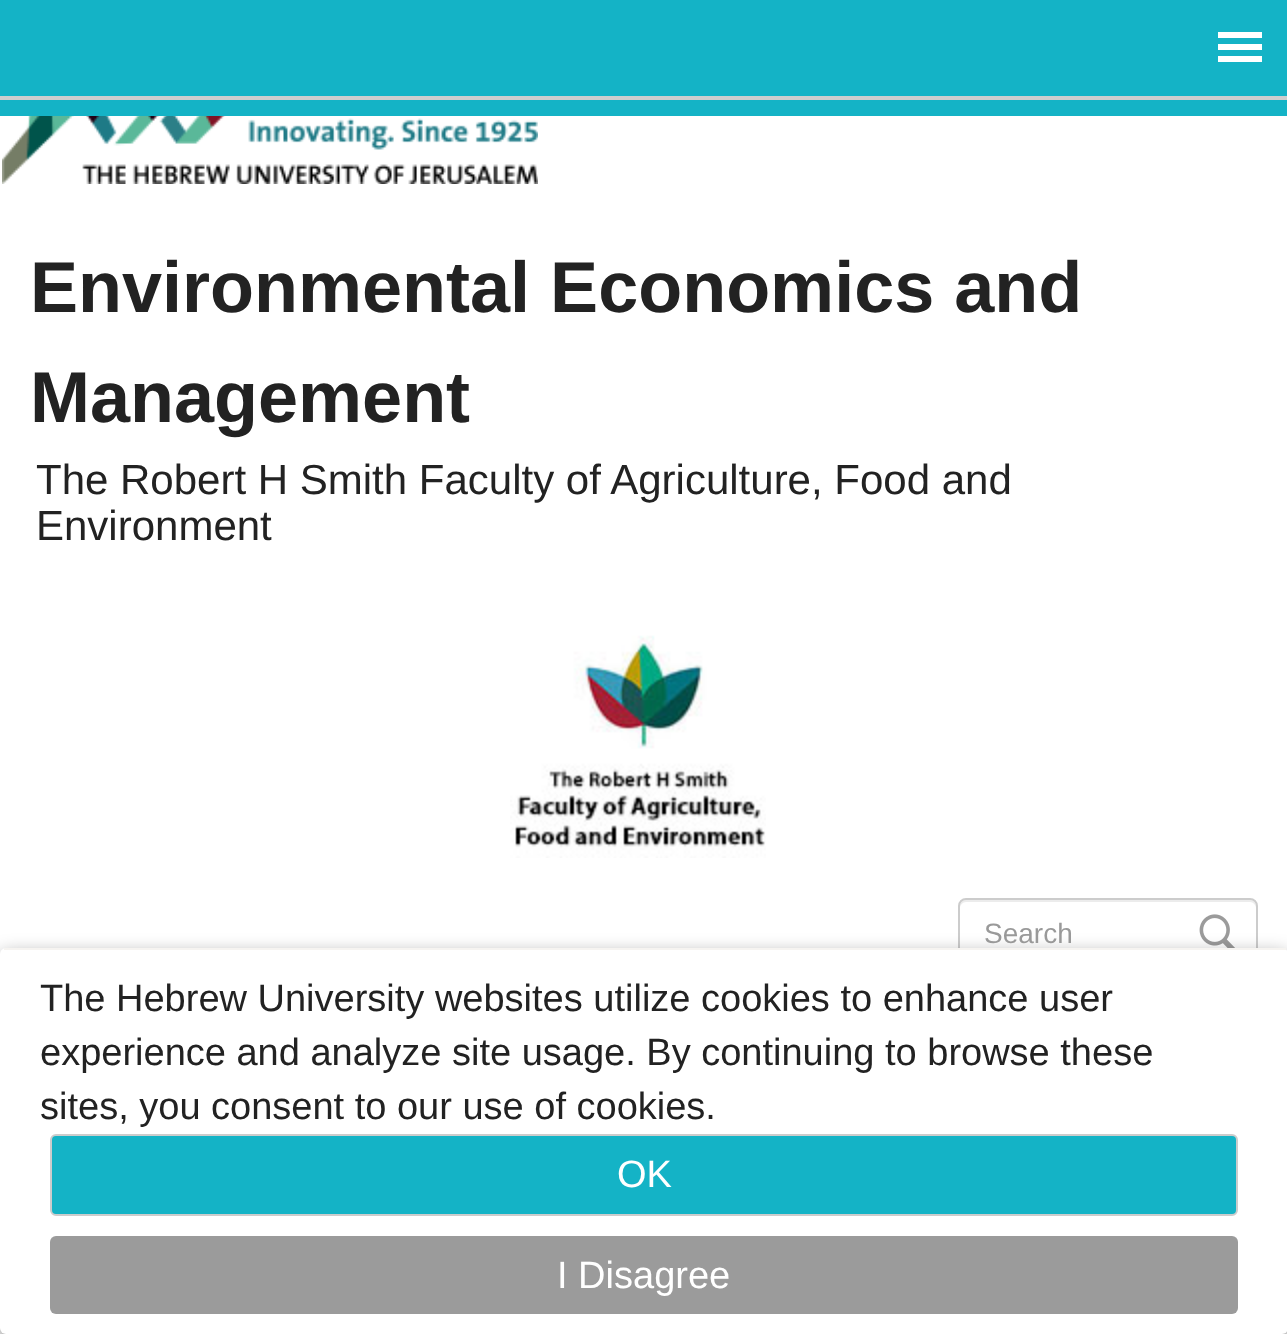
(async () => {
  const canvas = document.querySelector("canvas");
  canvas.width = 1287;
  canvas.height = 1334;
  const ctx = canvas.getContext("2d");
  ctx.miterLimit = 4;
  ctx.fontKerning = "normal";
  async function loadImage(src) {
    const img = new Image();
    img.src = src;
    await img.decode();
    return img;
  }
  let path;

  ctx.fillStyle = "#ffffff";
  ctx.fillRect(0, 0, 1287, 1334);
  for (const [x, y, w, h, color] of [
    [0, 0, 1287, 116, "#14b3c6"],
    [1218, 32, 44, 6, "#ffffff"],
    [1218, 44, 44, 6, "#ffffff"],
    [1218, 56, 44, 6, "#ffffff"],
    [0, 96, 1287, 4, "#cecece"],
  ]) {
    ctx.fillStyle = color;
    ctx.fillRect(x, y, w, h);
  }
  ctx.drawImage(await loadImage("img/1.png"), 2, 116, 536, 68);
  ctx.drawImage(await loadImage("img/2.png"), 510, 635, 256, 223);
  ctx.fillStyle = "#ececec";
  path = new Path2D("M966 902H1250C1253 902 1256 905 1256 908V906C1256 903 1253 900 1250 900H966C963 900 960 903 960 906V908C960 905 963 902 966 902Z");
  ctx.fill(path);
  ctx.beginPath();
  ctx.roundRect(959, 899, 298, 66, 7);
  ctx.strokeStyle = "#cccccc";
  ctx.lineWidth = 2;
  ctx.stroke();
  ctx.drawImage(await loadImage("img/3.png"), 1199, 914, 36, 34);
  ctx.fillStyle = "rgba(0, 0, 0, 0.48)";
  ctx.filter = "blur(10px)";
  ctx.beginPath();
  ctx.roundRect(0, 956, 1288, 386, 6);
  ctx.fill();
  ctx.filter = "none";
  ctx.fillStyle = "#ffffff";
  ctx.beginPath();
  ctx.roundRect(0, 948, 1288, 386, 6);
  ctx.fill();
  ctx.fillStyle = "#f6f4f1";
  ctx.fillRect(4, 948, 1282, 2);
  ctx.fillStyle = "#14b3c6";
  ctx.beginPath();
  ctx.roundRect(51, 1135, 1186, 80, 5);
  ctx.fill();
  ctx.stroke();
  ctx.fillStyle = "#9b9b9b";
  ctx.beginPath();
  ctx.roundRect(50, 1236, 1188, 78, 6);
  ctx.fill();
  ctx.font = "bold 72px Liberation Sans";
  ctx.fillStyle = "#222222";
  ctx.fillText("Environmental Economics and", 30, 312);
  ctx.fillText("Management", 30, 422);
  ctx.font = "42px Liberation Sans";
  ctx.fillText("The Robert H Smith Faculty of Agriculture, Food and", 36, 494);
  ctx.fillText("Environment", 36, 540);
  ctx.font = "28px Liberation Sans";
  ctx.fillStyle = "#999999";
  ctx.fillText("Search", 984, 943);
  ctx.font = "38px Liberation Sans";
  ctx.fillStyle = "#222222";
  for (const [text, x, y] of [
    ["The Hebrew University websites utilize cookies to enhance user", 40, 1011],
    ["experience and analyze site usage. By continuing to browse these", 40, 1065],
    ["sites, you consent to our use of cookies.", 40, 1119],
  ]) {
    ctx.fillText(text, x, y);
  }
  ctx.fillStyle = "#ffffff";
  ctx.fillText("OK", 617, 1187);
  ctx.fillText("I Disagree", 557, 1288);
})();
